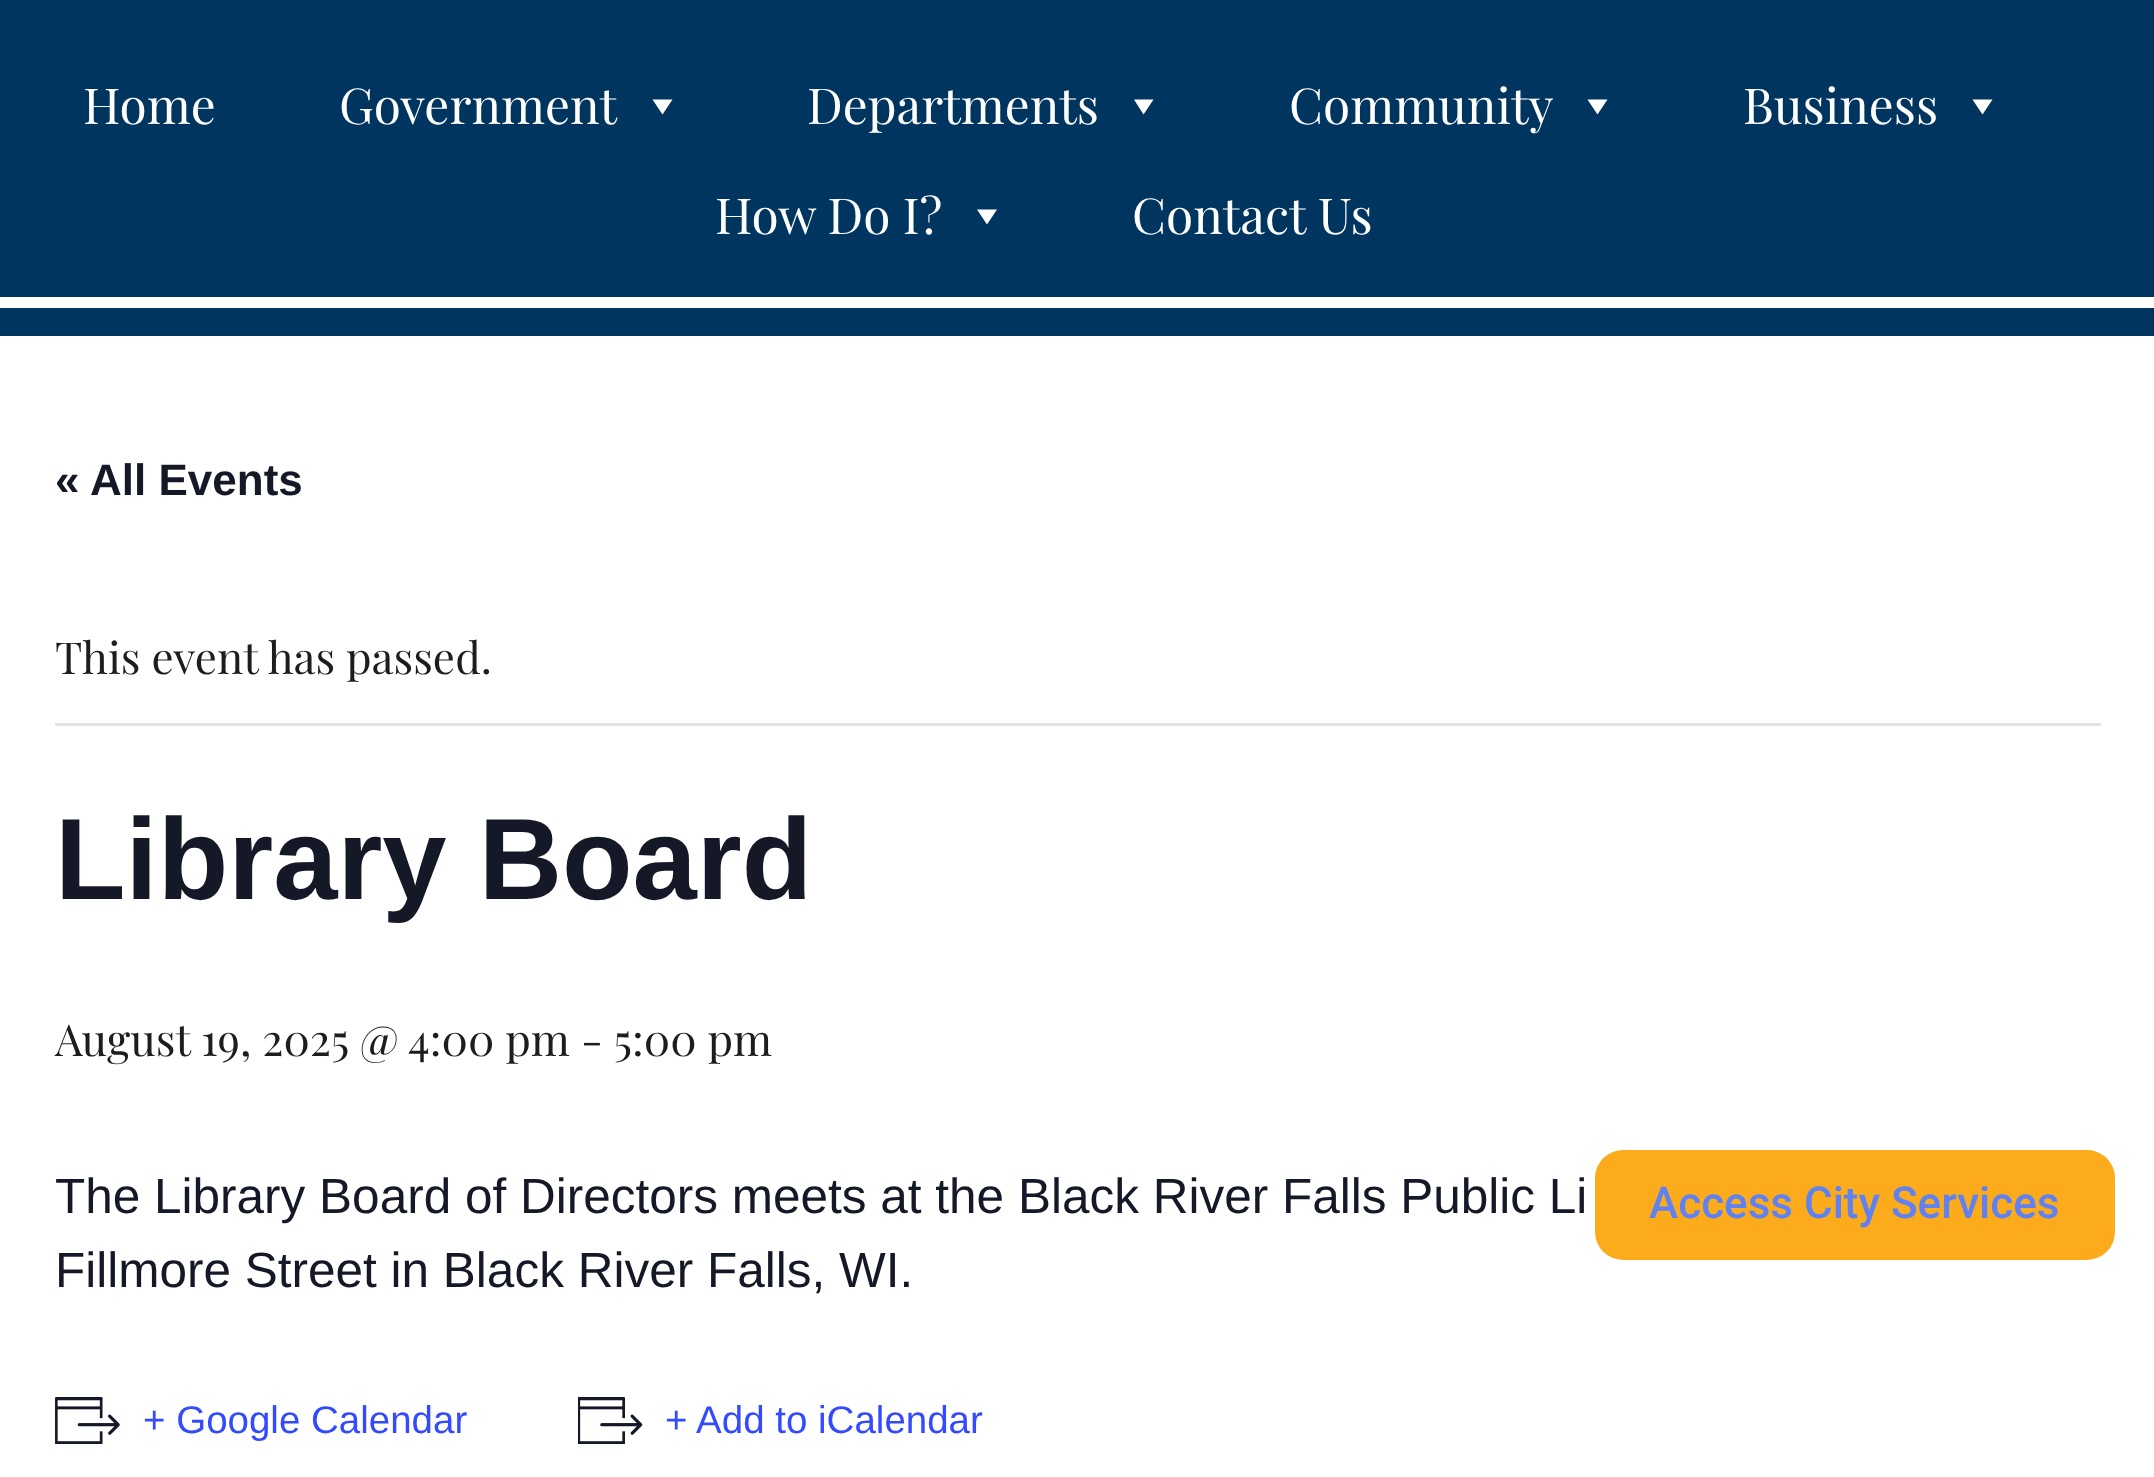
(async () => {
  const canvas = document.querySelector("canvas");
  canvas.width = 2154;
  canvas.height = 1477;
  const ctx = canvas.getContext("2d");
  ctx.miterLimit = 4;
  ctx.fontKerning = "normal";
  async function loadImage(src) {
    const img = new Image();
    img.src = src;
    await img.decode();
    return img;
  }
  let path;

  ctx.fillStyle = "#ffffff";
  ctx.fillRect(0, 0, 2154, 1477);
  ctx.fillStyle = "#00355f";
  ctx.fillRect(0, 0, 2154, 336);
  ctx.fillStyle = "#ffffff";
  path = new Path2D("M672.5 99.5L662.5 114.5L652.5 99.5Z");
  ctx.fill(path);
  path = new Path2D("M1153.5 99.5L1143.5 114.5L1134 99.5Z");
  ctx.fill(path);
  path = new Path2D("M1607.5 99.5L1597.5 114.5L1587.5 99.5Z");
  ctx.fill(path);
  path = new Path2D("M1992.5 99.5L1982.5 114.5L1972.5 99.5Z");
  ctx.fill(path);
  path = new Path2D("M997 209.5L987 224.5L977 209.5Z");
  ctx.fill(path);
  ctx.fillRect(0, 297, 2154, 11);
  ctx.fillStyle = "#e4e4e4";
  ctx.fillRect(55, 723, 2046, 3);
  ctx.drawImage(await loadImage("img/1.png"), 55, 1397, 65, 47);
  ctx.drawImage(await loadImage("img/2.png"), 578, 1397, 65, 47);
  ctx.fillStyle = "#fcab1c";
  ctx.beginPath();
  ctx.roundRect(1595, 1150, 520, 110, 28);
  ctx.fill();
  ctx.font = "49.5px Playfair Display";
  ctx.fillStyle = "#ffffff";
  for (const [text, x, y] of [
    ["Home", 83, 124],
    ["Government", 339, 124],
    ["Departments", 807, 124],
    ["Community", 1289, 124],
    ["Business", 1743, 124],
    ["How Do I?", 715, 234],
    ["Contact Us", 1132, 234],
  ]) {
    ctx.fillText(text, x, y);
  }
  ctx.font = "bold 44px Liberation Sans";
  ctx.fillStyle = "#141827";
  ctx.fillText("« All Events", 55, 495);
  ctx.font = "44px Playfair Display";
  ctx.fillStyle = "#1e1d1d";
  ctx.fillText("This event has passed.", 55, 674);
  ctx.font = "bold 115.5px Liberation Sans";
  ctx.fillStyle = "#141827";
  ctx.fillText("Library Board", 55, 899);
  ctx.font = "44px Playfair Display";
  ctx.fillStyle = "#1e1d1d";
  ctx.fillText("August 19, 2025 @ 4:00 pm - 5:00 pm", 55, 1056);
  ctx.font = "49.5px Liberation Sans";
  ctx.fillStyle = "#141827";
  ctx.fillText("The Library Board of Directors meets at the Black River Falls Public Li", 55, 1213);
  ctx.fillText("Fillmore Street in Black River Falls, WI.", 55, 1287);
  ctx.font = "38.5px Liberation Sans";
  ctx.fillStyle = "#334aff";
  ctx.fillText("+ Google Calendar", 143, 1433);
  ctx.fillText("+ Add to iCalendar", 665, 1433);
  ctx.font = "500 44px Roboto";
  ctx.fillStyle = "#5e81f4";
  ctx.fillText("Access City Services", 1649, 1218);
})();
